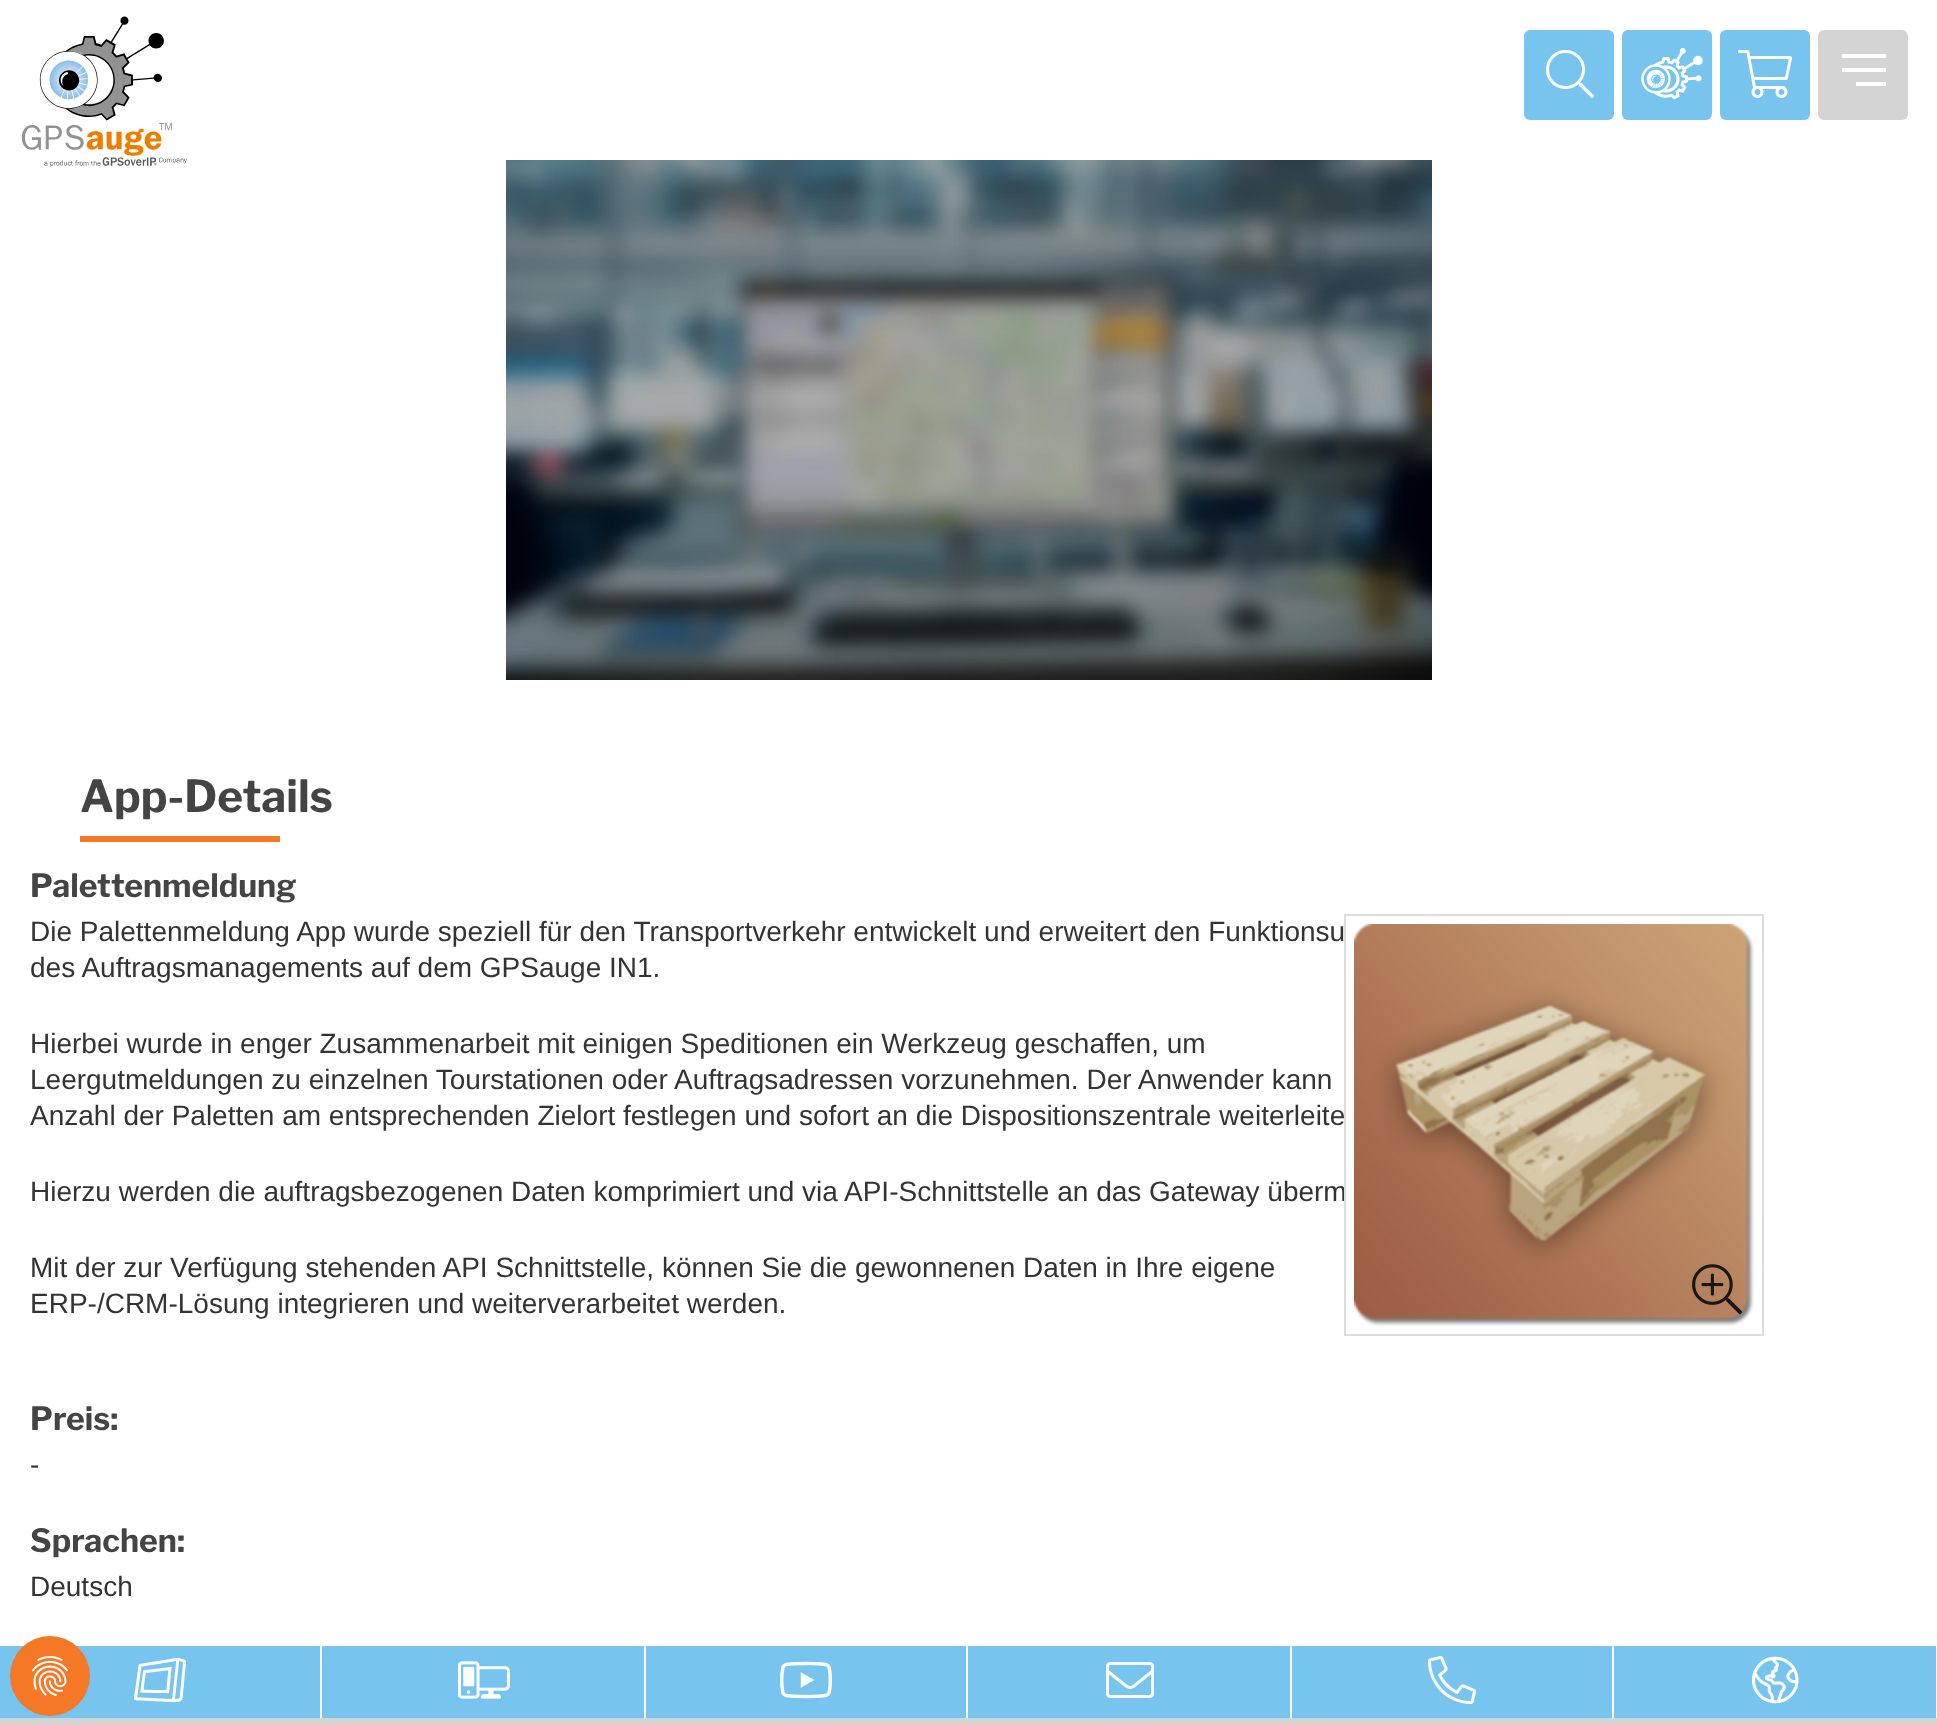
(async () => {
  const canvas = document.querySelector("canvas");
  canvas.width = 1937;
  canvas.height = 1725;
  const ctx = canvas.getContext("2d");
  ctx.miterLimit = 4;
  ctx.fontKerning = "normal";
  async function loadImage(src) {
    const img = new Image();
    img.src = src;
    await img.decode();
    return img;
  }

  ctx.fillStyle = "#ffffff";
  ctx.fillRect(0, 0, 1937, 1725);
  ctx.drawImage(await loadImage("img/1.png"), 21, 16, 166, 151);
  ctx.fillStyle = "#77c5ee";
  ctx.beginPath();
  ctx.roundRect(1524, 30, 90, 90, 6);
  ctx.fill();
  ctx.drawImage(await loadImage("img/2.png"), 1546, 50, 48, 48);
  ctx.beginPath();
  ctx.roundRect(1622, 30, 90, 90, 6);
  ctx.fill();
  ctx.drawImage(await loadImage("img/3.png"), 1641, 48, 62, 52);
  ctx.beginPath();
  ctx.roundRect(1720, 30, 90, 90, 6);
  ctx.fill();
  ctx.drawImage(await loadImage("img/4.png"), 1738, 50, 54, 48);
  ctx.fillStyle = "#d4d4d4";
  ctx.beginPath();
  ctx.roundRect(1818, 30, 90, 90, 6);
  ctx.fill();
  for (const [x, y, w, h, color] of [
    [1842, 68, 44, 4, "#ffffff"],
    [1842, 54, 44, 4, "#ffffff"],
    [1856, 82, 30, 4, "#ffffff"],
  ]) {
    ctx.fillStyle = color;
    ctx.fillRect(x, y, w, h);
  }
  ctx.drawImage(await loadImage("img/5.png"), 506, 160, 926, 520);
  for (const [x, y, w, h, color] of [
    [80, 836, 200, 6, "#f47825"],
    [0, 1718, 1937, 7, "#d4d4d4"],
    [0, 1646, 320, 72, "#77c5ee"],
  ]) {
    ctx.fillStyle = color;
    ctx.fillRect(x, y, w, h);
  }
  ctx.drawImage(await loadImage("img/8.png"), 134, 1657, 52, 46);
  ctx.fillRect(322, 1646, 322, 72);
  ctx.drawImage(await loadImage("img/9.png"), 458, 1661, 52, 38);
  ctx.fillRect(646, 1646, 320, 72);
  ctx.drawImage(await loadImage("img/10.png"), 780, 1661, 52, 38);
  ctx.fillRect(968, 1646, 322, 72);
  ctx.drawImage(await loadImage("img/11.png"), 1106, 1662, 48, 36);
  ctx.fillRect(1292, 1646, 320, 72);
  ctx.drawImage(await loadImage("img/12.png"), 1428, 1656, 48, 48);
  ctx.fillRect(1614, 1646, 322, 72);
  ctx.drawImage(await loadImage("img/13.png"), 1752, 1656, 47, 48);
  ctx.fillStyle = "#f47825";
  ctx.beginPath();
  ctx.arc(50, 1676, 40, 0, Math.PI * 2);
  ctx.fill();
  ctx.drawImage(await loadImage("img/14.png"), 32, 1656, 36, 40);
  ctx.font = "bold 44px Libre Franklin";
  ctx.fillStyle = "#444444";
  ctx.fillText("App-Details", 80, 812);
  ctx.font = "bold 32px Libre Franklin";
  ctx.fillText("Palettenmeldung", 30, 897);
  ctx.font = "28px Liberation Sans";
  ctx.fillStyle = "#333333";
  for (const [text, x, y] of [
    ["Die Palettenmeldung App wurde speziell für den Transportverkehr entwickelt und erweitert den Funktionsu", 30, 941],
    ["des Auftragsmanagements auf dem GPSauge IN1.", 30, 977],
    ["Hierbei wurde in enger Zusammenarbeit mit einigen Speditionen ein Werkzeug geschaffen, um", 30, 1053],
    ["Leergutmeldungen zu einzelnen Tourstationen oder Auftragsadressen vorzunehmen. Der Anwender kann", 30, 1089],
    ["Anzahl der Paletten am entsprechenden Zielort festlegen und sofort an die Dispositionszentrale weiterleite", 30, 1125],
    ["Hierzu werden die auftragsbezogenen Daten komprimiert und via API-Schnittstelle an das Gateway überm", 30, 1201],
    ["Mit der zur Verfügung stehenden API Schnittstelle, können Sie die gewonnenen Daten in Ihre eigene", 30, 1277],
    ["ERP-/CRM-Lösung integrieren und weiterverarbeitet werden.", 30, 1313],
  ]) {
    ctx.fillText(text, x, y);
  }
  ctx.font = "bold 32px Libre Franklin";
  ctx.fillStyle = "#444444";
  ctx.fillText("Preis:", 30, 1430);
  ctx.font = "28px Liberation Sans";
  ctx.fillStyle = "#333333";
  ctx.fillText("-", 30, 1474);
  ctx.font = "bold 32px Libre Franklin";
  ctx.fillStyle = "#444444";
  ctx.fillText("Sprachen:", 30, 1552);
  ctx.font = "28px Liberation Sans";
  ctx.fillStyle = "#333333";
  ctx.fillText("Deutsch", 30, 1596);
  ctx.strokeStyle = "#dddddd";
  ctx.lineWidth = 2;
  ctx.strokeRect(1345, 915, 418, 420);
  ctx.drawImage(await loadImage("img/6.png"), 1354, 924, 400, 402);
  ctx.drawImage(await loadImage("img/7.png"), 1692, 1264, 51, 51);
})();
